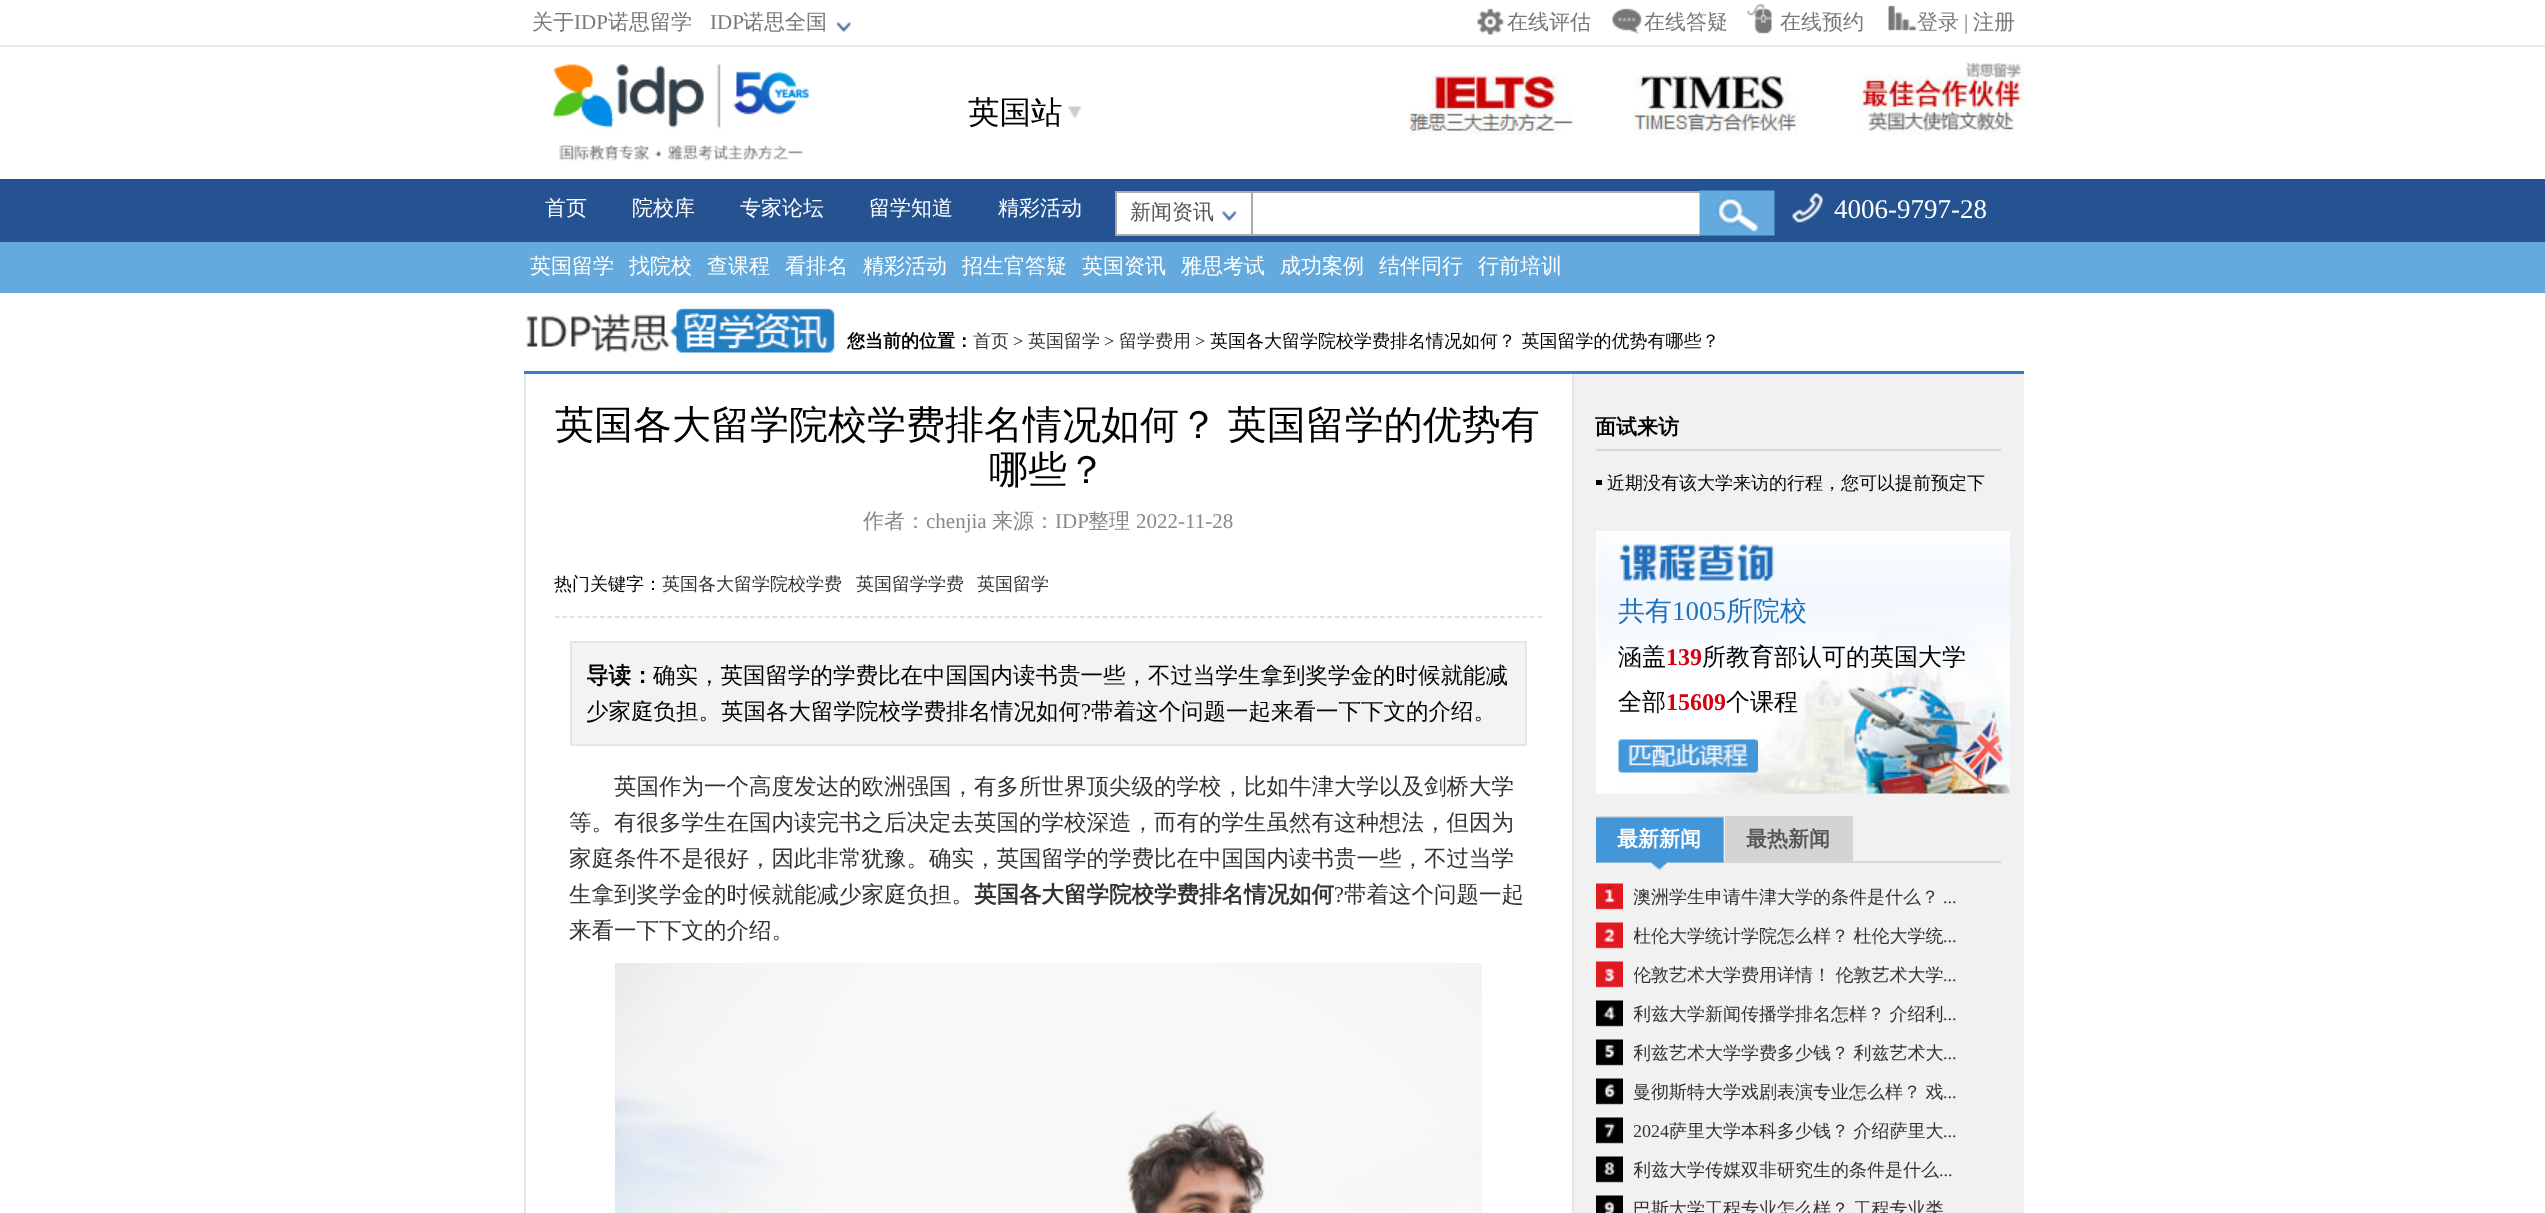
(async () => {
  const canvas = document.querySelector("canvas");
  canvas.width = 2545;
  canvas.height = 1213;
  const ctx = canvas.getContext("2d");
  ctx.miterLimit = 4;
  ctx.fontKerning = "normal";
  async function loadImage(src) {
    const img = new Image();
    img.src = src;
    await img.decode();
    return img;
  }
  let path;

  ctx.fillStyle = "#ffffff";
  ctx.fillRect(0, 0, 2545, 1213);
  ctx.fillStyle = "#e7e7e7";
  ctx.fillRect(0, 45, 2545, 2);
  ctx.drawImage(await loadImage("img/1.png"), 837, 22, 14, 10);
  ctx.drawImage(await loadImage("img/2.png"), 1477, 8, 27, 27);
  ctx.drawImage(await loadImage("img/3.png"), 1612, 8, 30, 26);
  ctx.drawImage(await loadImage("img/4.png"), 1747, 4, 25, 30);
  ctx.drawImage(await loadImage("img/5.png"), 1888, 5, 28, 26);
  ctx.drawImage(await loadImage("img/6.png"), 553, 64, 256, 97);
  ctx.drawImage(await loadImage("img/7.png"), 1068, 106, 14, 13);
  ctx.drawImage(await loadImage("img/8.png"), 1408, 74, 166, 61);
  ctx.drawImage(await loadImage("img/9.png"), 1633, 75, 166, 60);
  ctx.drawImage(await loadImage("img/10.png"), 1858, 63, 166, 72);
  ctx.fillStyle = "#255391";
  ctx.fillRect(0, 179, 2545, 63);
  ctx.fillStyle = "#ffffff";
  ctx.beginPath();
  ctx.rect(1116, 192, 136, 43);
  ctx.fill();
  ctx.strokeStyle = "#ababab";
  ctx.lineWidth = 2;
  ctx.stroke();
  ctx.drawImage(await loadImage("img/11.png"), 1222, 211, 14, 10);
  for (const [x, y, w, h, color] of [
    [1253, 193, 447, 41, "#ffffff"],
    [1253, 191, 447, 2, "#ababab"],
    [1253, 234, 447, 2, "#ababab"],
  ]) {
    ctx.fillStyle = color;
    ctx.fillRect(x, y, w, h);
  }
  ctx.drawImage(await loadImage("img/12.png"), 1699, 190, 76, 46);
  ctx.drawImage(await loadImage("img/13.png"), 1792, 193, 31, 30);
  ctx.fillStyle = "#64aade";
  ctx.fillRect(0, 242, 2545, 51);
  ctx.drawImage(await loadImage("img/14.png"), 526, 308, 309, 45);
  for (const [x, y, w, h, color] of [
    [524, 371, 1500, 3, "#3579d3"],
    [1572, 374, 2, 839, "#e5e5e5"],
    [524, 374, 2, 839, "#e5e5e5"],
  ]) {
    ctx.fillStyle = color;
    ctx.fillRect(x, y, w, h);
  }
  path = new Path2D("M555 617H1542");
  ctx.strokeStyle = "#d4d4d4";
  ctx.lineWidth = 1.5;
  ctx.setLineDash([4.5, 3]);
  ctx.stroke(path);
  ctx.fillStyle = "#f3f3f3";
  ctx.beginPath();
  ctx.rect(571, 642, 955, 103);
  ctx.fill();
  ctx.strokeStyle = "#e6e6e6";
  ctx.lineWidth = 2;
  ctx.setLineDash([]);
  ctx.stroke();
  ctx.drawImage(await loadImage("img/15.png"), 615, 963, 867, 250);
  for (const [x, y, w, h, color] of [
    [1574, 374, 450, 839, "#f1f1f1"],
    [1596, 449, 405, 2, "#d8d8d8"],
    [1596, 480, 6, 5, "#000000"],
  ]) {
    ctx.fillStyle = color;
    ctx.fillRect(x, y, w, h);
  }
  ctx.drawImage(await loadImage("img/16.png"), 1596, 531, 414, 263);
  ctx.drawImage(await loadImage("img/17.png"), 1618, 739, 140, 34);
  ctx.fillStyle = "#d8d8d8";
  ctx.fillRect(1596, 861, 405, 2);
  ctx.fillStyle = "#d4d4d4";
  ctx.fillRect(1596, 816, 128, 45);
  ctx.drawImage(await loadImage("img/18.png"), 1596, 817, 128, 53);
  ctx.fillRect(1725, 816, 128, 45);
  ctx.drawImage(await loadImage("img/19.png"), 1596, 883, 27, 330);
  ctx.font = "500 21px WenQuanYi Zen Hei";
  ctx.fillStyle = "#777777";
  ctx.fillText("关于", 532, 29);
  ctx.font = "21px Liberation Serif";
  ctx.fillText("IDP", 574, 29);
  ctx.font = "500 21px WenQuanYi Zen Hei";
  ctx.fillText("诺思留学", 608, 29);
  ctx.font = "21px Liberation Serif";
  ctx.fillText("IDP", 710, 29);
  ctx.font = "500 21px WenQuanYi Zen Hei";
  for (const [text, x, y] of [
    ["诺思全国", 743, 29],
    ["在线评估", 1507, 29],
    ["在线答疑", 1644, 29],
    ["在线预约", 1780, 29],
    ["登录", 1917, 29],
  ]) {
    ctx.fillText(text, x, y);
  }
  ctx.font = "21px Liberation Serif";
  ctx.fillText("|", 1964, 29);
  ctx.font = "500 21px WenQuanYi Zen Hei";
  ctx.fillText("注册", 1973, 29);
  ctx.font = "500 31.5px WenQuanYi Zen Hei";
  ctx.fillStyle = "#000000";
  ctx.fillText("英国站", 968, 123);
  ctx.font = "500 21px WenQuanYi Zen Hei";
  ctx.fillStyle = "#ffffff";
  for (const [text, x, y] of [
    ["首页", 545, 215],
    ["院校库", 632, 215],
    ["专家论坛", 740, 215],
    ["留学知道", 869, 215],
    ["精彩活动", 998, 215],
  ]) {
    ctx.fillText(text, x, y);
  }
  ctx.fillStyle = "#555555";
  ctx.fillText("新闻资讯", 1130, 219);
  ctx.font = "27px Liberation Serif";
  ctx.fillStyle = "#ffffff";
  ctx.fillText("4006-9797-28", 1834, 218);
  ctx.font = "500 21px WenQuanYi Zen Hei";
  for (const [text, x, y] of [
    ["英国留学", 530, 273],
    ["找院校", 629, 273],
    ["查课程", 707, 273],
    ["看排名", 785, 273],
    ["精彩活动", 863, 273],
    ["招生官答疑", 962, 273],
    ["英国资讯", 1082, 273],
    ["雅思考试", 1181, 273],
    ["成功案例", 1280, 273],
    ["结伴同行", 1379, 273],
    ["行前培训", 1478, 273],
  ]) {
    ctx.fillText(text, x, y);
  }
  ctx.font = "bold 18px WenQuanYi Zen Hei";
  ctx.fillStyle = "#000000";
  ctx.fillText("您当前的位置：", 847, 347);
  ctx.font = "500 18px WenQuanYi Zen Hei";
  ctx.fillStyle = "#333333";
  ctx.fillText("首页", 973, 347);
  ctx.font = "18px Liberation Serif";
  ctx.fillStyle = "#000000";
  ctx.fillText(">", 1013, 347);
  ctx.font = "500 18px WenQuanYi Zen Hei";
  ctx.fillStyle = "#333333";
  ctx.fillText("英国留学", 1028, 347);
  ctx.font = "18px Liberation Serif";
  ctx.fillStyle = "#000000";
  ctx.fillText(">", 1104, 347);
  ctx.font = "500 18px WenQuanYi Zen Hei";
  ctx.fillStyle = "#333333";
  ctx.fillText("留学费用", 1119, 347);
  ctx.font = "18px Liberation Serif";
  ctx.fillStyle = "#000000";
  ctx.fillText(">", 1195, 347);
  ctx.font = "500 18px WenQuanYi Zen Hei";
  ctx.fillText("英国各大留学院校学费排名情况如何？ 英国留学的优势有哪些？", 1210, 347);
  ctx.wordSpacing = "-2px";
  ctx.font = "500 39px WenQuanYi Zen Hei";
  ctx.fillText("英国各大留学院校学费排名情况如何？ 英国留学的优势有", 555, 438);
  ctx.wordSpacing = "0px";
  ctx.fillText("哪些？", 989, 483);
  ctx.font = "500 21px WenQuanYi Zen Hei";
  ctx.fillStyle = "#888888";
  ctx.fillText("作者：", 863, 528);
  ctx.font = "21px Liberation Serif";
  ctx.fillText("chenjia", 926, 528);
  ctx.font = "500 21px WenQuanYi Zen Hei";
  ctx.fillText("来源：", 992, 528);
  ctx.font = "21px Liberation Serif";
  ctx.fillText("IDP", 1055, 528);
  ctx.font = "500 21px WenQuanYi Zen Hei";
  ctx.fillText("整理", 1088, 528);
  ctx.font = "21px Liberation Serif";
  ctx.fillText("2022-11-28", 1136, 528);
  ctx.font = "500 18px WenQuanYi Zen Hei";
  ctx.fillStyle = "#000000";
  ctx.fillText("热门关键字：", 554, 590);
  ctx.fillStyle = "#333333";
  for (const [text, x, y] of [
    ["英国各大留学院校学费", 662, 590],
    ["英国留学学费", 856, 590],
    ["英国留学", 977, 590],
  ]) {
    ctx.fillText(text, x, y);
  }
  ctx.font = "bold 22.5px WenQuanYi Zen Hei";
  ctx.fillStyle = "#000000";
  ctx.fillText("导读：", 586, 683);
  ctx.font = "500 22.5px WenQuanYi Zen Hei";
  ctx.fillText("确实，英国留学的学费比在中国国内读书贵一些，不过当学生拿到奖学金的时候就能减", 653, 683);
  ctx.fillText("少家庭负担。英国各大留学院校学费排名情况如何", 586, 719);
  ctx.font = "22.5px Liberation Serif";
  ctx.fillText("?", 1081, 719);
  ctx.font = "500 22.5px WenQuanYi Zen Hei";
  ctx.fillText("带着这个问题一起来看一下下文的介绍。", 1091, 719);
  ctx.fillStyle = "#333333";
  for (const [text, x, y] of [
    ["英国作为一个高度发达的欧洲强国，有多所世界顶尖级的学校，比如牛津大学以及剑桥大学", 614, 794],
    ["等。有很多学生在国内读完书之后决定去英国的学校深造，而有的学生虽然有这种想法，但因为", 569, 830],
    ["家庭条件不是很好，因此非常犹豫。确实，英国留学的学费比在中国国内读书贵一些，不过当学", 569, 866],
    ["生拿到奖学金的时候就能减少家庭负担。", 569, 902],
  ]) {
    ctx.fillText(text, x, y);
  }
  ctx.font = "bold 22.5px WenQuanYi Zen Hei";
  ctx.fillText("英国各大留学院校学费排名情况如何", 974, 902);
  ctx.font = "22.5px Liberation Serif";
  ctx.fillText("?", 1334, 902);
  ctx.font = "500 22.5px WenQuanYi Zen Hei";
  ctx.fillText("带着这个问题一起", 1344, 902);
  ctx.fillText("来看一下下文的介绍。", 569, 938);
  ctx.font = "bold 21px WenQuanYi Zen Hei";
  ctx.fillStyle = "#000000";
  ctx.fillText("面试来访", 1595, 434);
  ctx.font = "500 18px WenQuanYi Zen Hei";
  ctx.fillText("近期没有该大学来访的行程，您可以提前预定下", 1607, 489);
  ctx.font = "500 27px WenQuanYi Zen Hei";
  ctx.fillStyle = "#1f71be";
  ctx.fillText("共有", 1618, 620);
  ctx.font = "27px Liberation Serif";
  ctx.fillText("1005", 1672, 620);
  ctx.font = "500 27px WenQuanYi Zen Hei";
  ctx.fillText("所院校", 1726, 620);
  ctx.font = "500 24px WenQuanYi Zen Hei";
  ctx.fillStyle = "#000000";
  ctx.fillText("涵盖", 1618, 665);
  ctx.font = "bold 24px Liberation Serif";
  ctx.fillStyle = "#d6000f";
  ctx.fillText("139", 1666, 665);
  ctx.font = "500 24px WenQuanYi Zen Hei";
  ctx.fillStyle = "#000000";
  ctx.fillText("所教育部认可的英国大学", 1702, 665);
  ctx.fillText("全部", 1618, 710);
  ctx.font = "bold 24px Liberation Serif";
  ctx.fillStyle = "#d6000f";
  ctx.fillText("15609", 1666, 710);
  ctx.font = "500 24px WenQuanYi Zen Hei";
  ctx.fillStyle = "#000000";
  ctx.fillText("个课程", 1726, 710);
  ctx.font = "bold 21px WenQuanYi Zen Hei";
  ctx.fillStyle = "#ffffff";
  ctx.fillText("最新新闻", 1617, 846);
  ctx.fillStyle = "#555555";
  ctx.fillText("最热新闻", 1746, 846);
  ctx.save();
  ctx.beginPath();
  ctx.rect(1634, 878, 367, 39);
  ctx.clip();
  ctx.font = "500 18px WenQuanYi Zen Hei";
  ctx.fillStyle = "#333333";
  ctx.fillText("澳洲学生申请牛津大学的条件是什么？", 1633, 903);
  ctx.restore();
  ctx.font = "18px Liberation Serif";
  ctx.fillStyle = "#333333";
  ctx.fillText("...", 1943, 903);
  ctx.save();
  ctx.beginPath();
  ctx.rect(1634, 917, 367, 39);
  ctx.clip();
  ctx.wordSpacing = "-1px";
  ctx.font = "500 18px WenQuanYi Zen Hei";
  ctx.fillText("杜伦大学统计学院怎么样？ 杜伦大学统", 1633, 942);
  ctx.restore();
  ctx.fillText("...", 1943, 942);
  ctx.save();
  ctx.beginPath();
  ctx.rect(1634, 956, 367, 39);
  ctx.clip();
  ctx.wordSpacing = "-1px";
  ctx.font = "500 18px WenQuanYi Zen Hei";
  ctx.fillText("伦敦艺术大学费用详情！ 伦敦艺术大学", 1633, 981);
  ctx.restore();
  ctx.fillText("...", 1943, 981);
  ctx.save();
  ctx.beginPath();
  ctx.rect(1634, 995, 367, 39);
  ctx.clip();
  ctx.wordSpacing = "-1px";
  ctx.font = "500 18px WenQuanYi Zen Hei";
  ctx.fillText("利兹大学新闻传播学排名怎样？ 介绍利", 1633, 1020);
  ctx.restore();
  ctx.fillText("...", 1943, 1020);
  ctx.save();
  ctx.beginPath();
  ctx.rect(1634, 1034, 367, 39);
  ctx.clip();
  ctx.wordSpacing = "-1px";
  ctx.font = "500 18px WenQuanYi Zen Hei";
  ctx.fillText("利兹艺术大学学费多少钱？ 利兹艺术大", 1633, 1059);
  ctx.restore();
  ctx.fillText("...", 1943, 1059);
  ctx.wordSpacing = "-1px";
  ctx.font = "500 18px WenQuanYi Zen Hei";
  ctx.fillText("曼彻斯特大学戏剧表演专业怎么样？ 戏", 1633, 1098);
  ctx.wordSpacing = "0px";
  ctx.font = "18px Liberation Serif";
  ctx.fillText("...", 1943, 1098);
  ctx.save();
  ctx.beginPath();
  ctx.rect(1634, 1112, 367, 39);
  ctx.clip();
  ctx.fillText("2024", 1633, 1137);
  ctx.restore();
  ctx.wordSpacing = "-1px";
  ctx.font = "500 18px WenQuanYi Zen Hei";
  ctx.fillText("萨里大学本科多少钱？ 介绍萨里大", 1669, 1137);
  ctx.wordSpacing = "0px";
  ctx.font = "18px Liberation Serif";
  ctx.fillText("...", 1943, 1137);
  ctx.save();
  ctx.beginPath();
  ctx.rect(1634, 1151, 367, 39);
  ctx.clip();
  ctx.font = "500 18px WenQuanYi Zen Hei";
  ctx.fillText("利兹大学传媒双非研究生的条件是什么", 1633, 1176);
  ctx.restore();
  ctx.fillText("...", 1939, 1176);
  ctx.wordSpacing = "-1px";
  ctx.font = "500 18px WenQuanYi Zen Hei";
  ctx.fillText("巴斯大学工程专业怎么样？ 工程专业类", 1633, 1215);
})();
